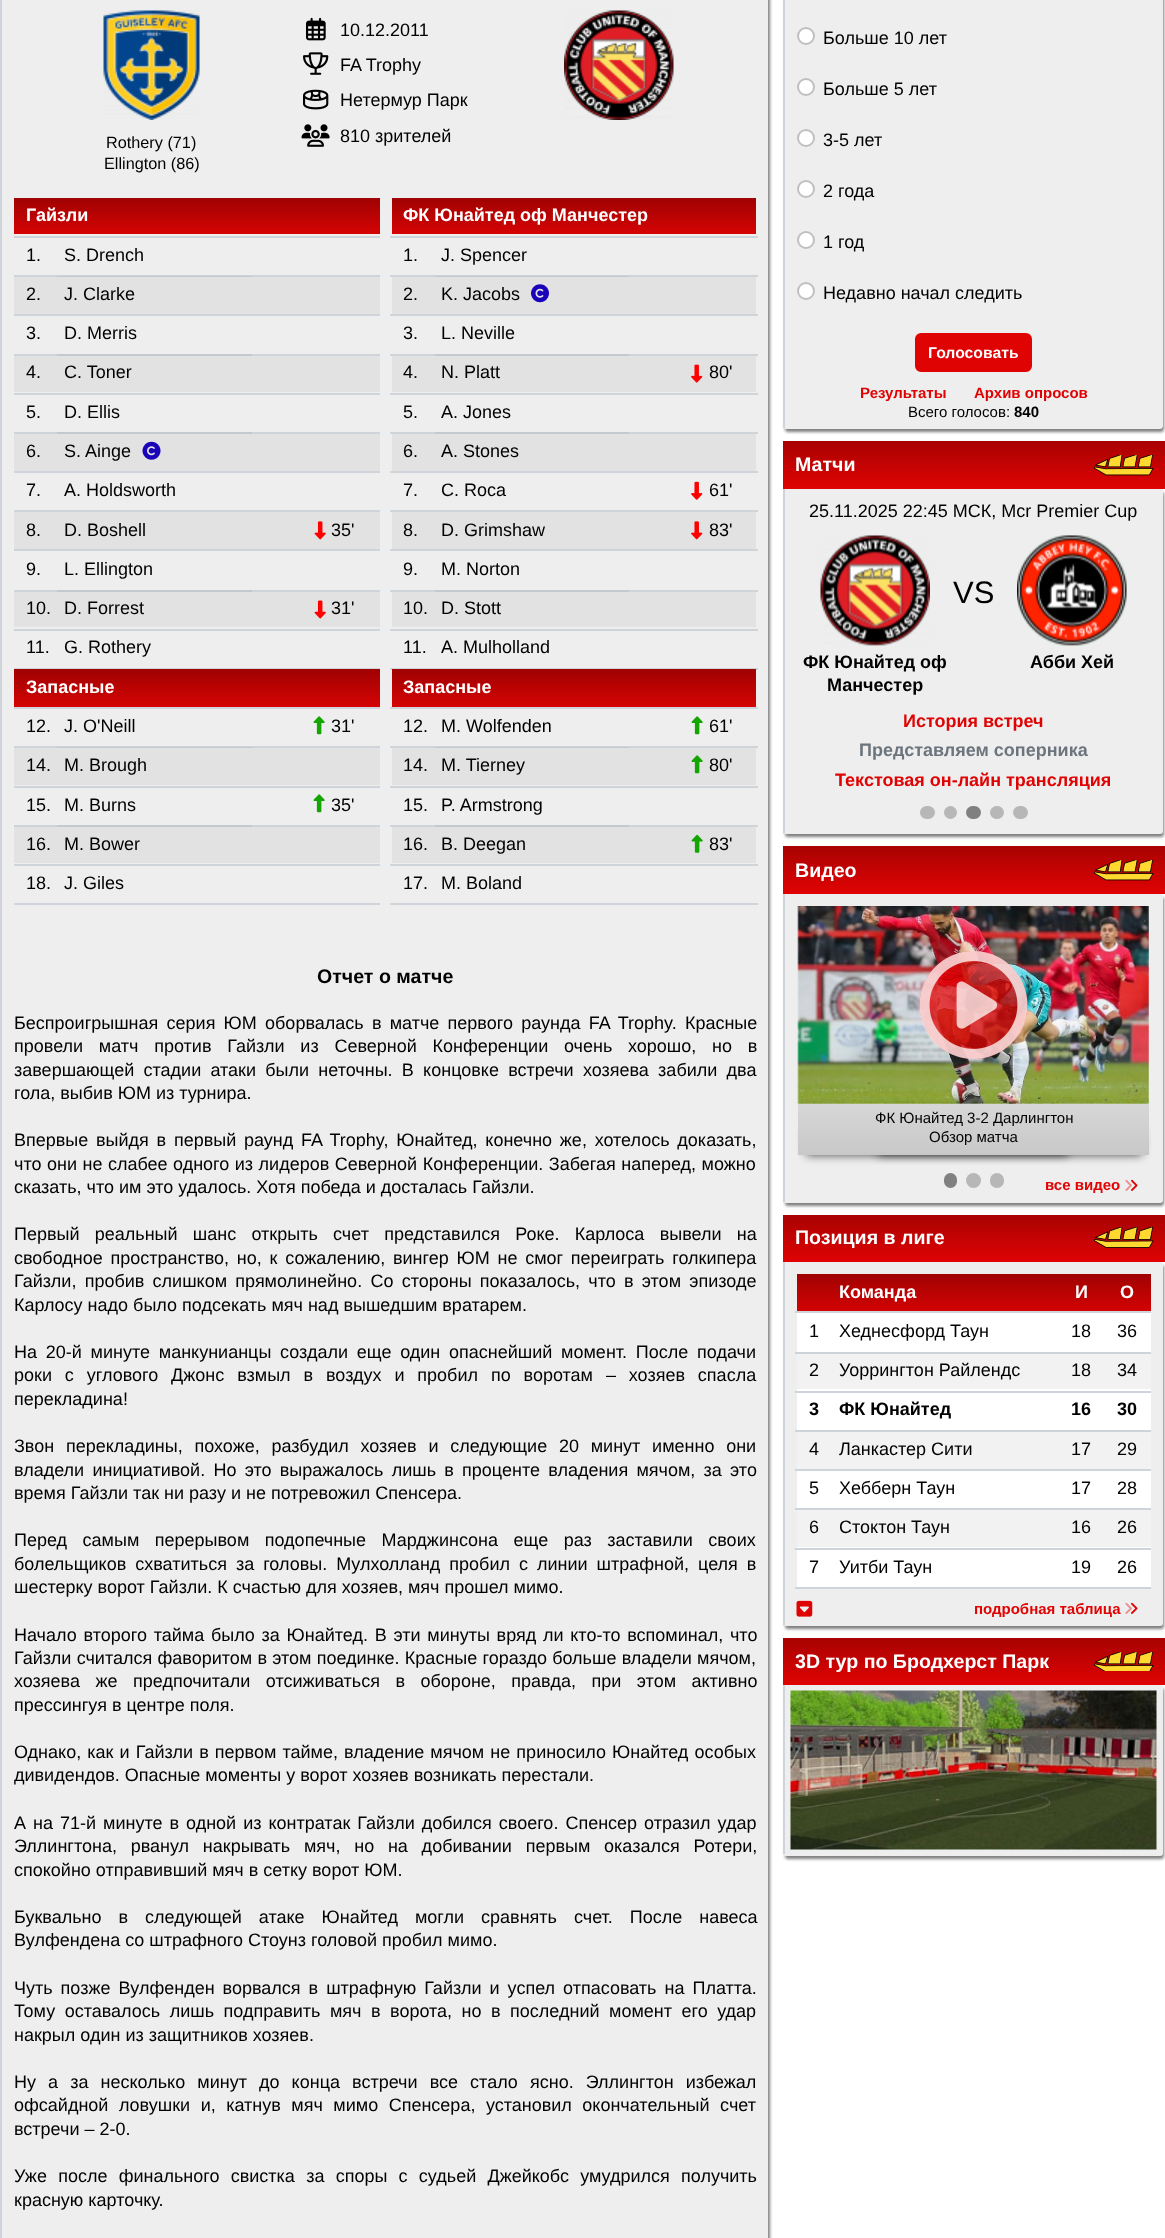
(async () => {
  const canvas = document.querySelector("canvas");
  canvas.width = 1165;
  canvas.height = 2238;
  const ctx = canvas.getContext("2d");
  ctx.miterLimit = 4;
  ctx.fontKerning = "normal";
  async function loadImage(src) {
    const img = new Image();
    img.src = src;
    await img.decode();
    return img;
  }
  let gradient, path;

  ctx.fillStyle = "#ffffff";
  ctx.fillRect(0, 0, 1165, 2238);
  ctx.fillStyle = "rgba(0, 0, 0, 0.5)";
  ctx.filter = "blur(1.5px)";
  ctx.beginPath();
  ctx.roundRect(2, -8, 768, 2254, 3);
  ctx.fill();
  ctx.filter = "none";
  for (const [x, y, w, h, color] of [
    [2, 0, 766, 2238, "#eeeeee"],
    [392, 827, 364, 36, "#e2e2e2"],
    [392, 748, 364, 37, "#e2e2e2"],
    [392, 592, 364, 35, "#e2e2e2"],
    [392, 434, 364, 37, "#e2e2e2"],
    [392, 356, 364, 36, "#e2e2e2"],
    [392, 277, 364, 37, "#e2e2e2"],
    [14, 827, 366, 36, "#e2e2e2"],
    [14, 748, 366, 37, "#e2e2e2"],
    [14, 592, 366, 35, "#e2e2e2"],
    [14, 434, 366, 37, "#e2e2e2"],
    [14, 356, 366, 36, "#e2e2e2"],
    [14, 277, 366, 37, "#e2e2e2"],
    [0, 0, 2, 2238, "#ced4da"],
  ]) {
    ctx.fillStyle = color;
    ctx.fillRect(x, y, w, h);
  }
  ctx.drawImage(await loadImage("img/1.png"), 306, 17, 20, 24);
  ctx.drawImage(await loadImage("img/2.png"), 303, 52, 26, 23);
  ctx.drawImage(await loadImage("img/3.png"), 303, 89, 26, 21);
  ctx.drawImage(await loadImage("img/4.png"), 301, 124, 29, 23);
  ctx.drawImage(await loadImage("img/5.png"), 564, 10, 110, 110);
  ctx.drawImage(await loadImage("img/6.png"), 103, 10, 97, 110);
  ctx.fillRect(14, 236, 366, 2);
  gradient = ctx.createLinearGradient(197, 234, 197, 198);
  gradient.addColorStop(0, "#d50303");
  gradient.addColorStop(1, "#a00202");
  ctx.fillStyle = gradient;
  ctx.fillRect(14, 198, 366, 36);
  for (const [x, y, w, h, color] of [
    [14, 275, 366, 2, "#ced4da"],
    [57, 276, 195, 1, "#c4c9cf"],
    [14, 314, 366, 2, "#ced4da"],
    [14, 354, 366, 2, "#ced4da"],
    [57, 354, 195, 2, "#c4c9cf"],
    [14, 393, 366, 2, "#ced4da"],
    [14, 432, 366, 2, "#ced4da"],
    [57, 432, 195, 2, "#c4c9cf"],
    [14, 471, 366, 2, "#ced4da"],
  ]) {
    ctx.fillStyle = color;
    ctx.fillRect(x, y, w, h);
  }
  ctx.drawImage(await loadImage("img/7.png"), 142, 441, 19, 19);
  for (const [x, y, w, h, color] of [
    [14, 510, 366, 2, "#ced4da"],
    [14, 549, 366, 2, "#ced4da"],
    [14, 512, 43, 37, "#e2e2e2"],
    [57, 512, 323, 37, "#e2e2e2"],
  ]) {
    ctx.fillStyle = color;
    ctx.fillRect(x, y, w, h);
  }
  ctx.drawImage(await loadImage("img/8.png"), 314, 521, 12, 19);
  for (const [x, y, w, h, color] of [
    [14, 590, 366, 2, "#ced4da"],
    [57, 590, 195, 2, "#c4c9cf"],
    [14, 629, 366, 2, "#ced4da"],
  ]) {
    ctx.fillStyle = color;
    ctx.fillRect(x, y, w, h);
  }
  ctx.drawImage(await loadImage("img/9.png"), 314, 600, 12, 19);
  ctx.fillRect(14, 668, 366, 1);
  ctx.fillRect(14, 707, 366, 2);
  gradient = ctx.createLinearGradient(197, 707, 197, 669);
  gradient.addColorStop(0, "#d50303");
  gradient.addColorStop(1, "#a00202");
  ctx.fillStyle = gradient;
  ctx.fillRect(14, 669, 366, 38);
  ctx.fillStyle = "#ced4da";
  ctx.fillRect(14, 746, 366, 2);
  ctx.fillStyle = "#c4c9cf";
  ctx.fillRect(57, 747, 195, 1);
  ctx.drawImage(await loadImage("img/10.png"), 313, 716, 12, 19);
  for (const [x, y, w, h, color] of [
    [14, 786, 366, 2, "#ced4da"],
    [14, 825, 366, 2, "#ced4da"],
    [57, 825, 195, 2, "#c4c9cf"],
  ]) {
    ctx.fillStyle = color;
    ctx.fillRect(x, y, w, h);
  }
  ctx.drawImage(await loadImage("img/10.png"), 313, 794, 12, 19);
  for (const [x, y, w, h, color] of [
    [14, 864, 366, 2, "#ced4da"],
    [14, 903, 366, 2, "#ced4da"],
    [390, 236, 368, 2, "#ced4da"],
  ]) {
    ctx.fillStyle = color;
    ctx.fillRect(x, y, w, h);
  }
  gradient = ctx.createLinearGradient(574, 234, 574, 198);
  gradient.addColorStop(0, "#d50303");
  gradient.addColorStop(1, "#a00202");
  ctx.fillStyle = gradient;
  ctx.fillRect(392, 198, 364, 36);
  for (const [x, y, w, h, color] of [
    [390, 275, 368, 2, "#ced4da"],
    [435, 276, 194, 1, "#c4c9cf"],
    [390, 314, 368, 2, "#ced4da"],
  ]) {
    ctx.fillStyle = color;
    ctx.fillRect(x, y, w, h);
  }
  ctx.drawImage(await loadImage("img/11.png"), 531, 284, 18, 19);
  for (const [x, y, w, h, color] of [
    [390, 354, 368, 2, "#ced4da"],
    [435, 354, 194, 2, "#c4c9cf"],
    [390, 393, 368, 2, "#ced4da"],
  ]) {
    ctx.fillStyle = color;
    ctx.fillRect(x, y, w, h);
  }
  ctx.drawImage(await loadImage("img/12.png"), 691, 364, 12, 19);
  for (const [x, y, w, h, color] of [
    [390, 432, 368, 2, "#ced4da"],
    [435, 432, 194, 2, "#c4c9cf"],
    [390, 471, 368, 2, "#ced4da"],
    [390, 510, 368, 2, "#ced4da"],
  ]) {
    ctx.fillStyle = color;
    ctx.fillRect(x, y, w, h);
  }
  ctx.drawImage(await loadImage("img/13.png"), 691, 481, 12, 19);
  for (const [x, y, w, h, color] of [
    [390, 549, 368, 2, "#ced4da"],
    [392, 512, 43, 37, "#e2e2e2"],
    [435, 512, 321, 37, "#e2e2e2"],
  ]) {
    ctx.fillStyle = color;
    ctx.fillRect(x, y, w, h);
  }
  ctx.drawImage(await loadImage("img/14.png"), 691, 521, 12, 19);
  for (const [x, y, w, h, color] of [
    [390, 590, 368, 2, "#ced4da"],
    [435, 590, 194, 2, "#c4c9cf"],
    [390, 629, 368, 2, "#ced4da"],
    [390, 668, 368, 2, "#ced4da"],
    [390, 707, 368, 2, "#ced4da"],
  ]) {
    ctx.fillStyle = color;
    ctx.fillRect(x, y, w, h);
  }
  gradient = ctx.createLinearGradient(574, 707, 574, 669);
  gradient.addColorStop(0, "#d50303");
  gradient.addColorStop(1, "#a00202");
  ctx.fillStyle = gradient;
  ctx.fillRect(392, 669, 364, 38);
  ctx.fillStyle = "#ced4da";
  ctx.fillRect(390, 746, 368, 2);
  ctx.fillStyle = "#c4c9cf";
  ctx.fillRect(435, 747, 194, 1);
  ctx.drawImage(await loadImage("img/10.png"), 691, 716, 12, 19);
  ctx.fillStyle = "#ced4da";
  ctx.fillRect(390, 786, 368, 2);
  ctx.drawImage(await loadImage("img/15.png"), 691, 755, 12, 19);
  for (const [x, y, w, h, color] of [
    [390, 825, 368, 2, "#ced4da"],
    [435, 825, 194, 2, "#c4c9cf"],
    [390, 864, 368, 2, "#ced4da"],
  ]) {
    ctx.fillStyle = color;
    ctx.fillRect(x, y, w, h);
  }
  ctx.drawImage(await loadImage("img/16.png"), 691, 834, 12, 19);
  ctx.fillRect(390, 903, 368, 2);
  ctx.fillStyle = "rgba(0, 0, 0, 0.5)";
  ctx.filter = "blur(1.5px)";
  ctx.beginPath();
  ctx.roundRect(785, -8, 379, 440, 3);
  ctx.fill();
  ctx.filter = "none";
  ctx.fillStyle = "#eeeeee";
  path = new Path2D("M783-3H1163V426C1163 427.5 1161.5 429 1160 429H786C784.5 429 783 427.5 783 426Z");
  ctx.fill(path);
  ctx.fillStyle = "#ced4da";
  ctx.fillRect(783, 0, 2, 428);
  ctx.fillStyle = "#ffffff";
  ctx.beginPath();
  ctx.arc(806, 36, 9, 0, Math.PI * 2);
  ctx.fill();
  ctx.beginPath();
  ctx.arc(806, 36, 8, 0, Math.PI * 2);
  ctx.strokeStyle = "rgba(0, 0, 0, 0.25)";
  ctx.lineWidth = 2;
  ctx.stroke();
  ctx.beginPath();
  ctx.arc(806, 87, 9, 0, Math.PI * 2);
  ctx.fill();
  ctx.beginPath();
  ctx.arc(806, 87, 8, 0, Math.PI * 2);
  ctx.stroke();
  ctx.beginPath();
  ctx.arc(806, 138, 9, 0, Math.PI * 2);
  ctx.fill();
  ctx.beginPath();
  ctx.arc(806, 138, 8, 0, Math.PI * 2);
  ctx.stroke();
  ctx.beginPath();
  ctx.arc(806, 189, 9, 0, Math.PI * 2);
  ctx.fill();
  ctx.beginPath();
  ctx.arc(806, 189, 8, 0, Math.PI * 2);
  ctx.stroke();
  ctx.beginPath();
  ctx.arc(806, 240, 9, 0, Math.PI * 2);
  ctx.fill();
  ctx.beginPath();
  ctx.arc(806, 240, 8, 0, Math.PI * 2);
  ctx.stroke();
  ctx.beginPath();
  ctx.arc(806, 291, 9, 0, Math.PI * 2);
  ctx.fill();
  ctx.beginPath();
  ctx.arc(806, 291, 8, 0, Math.PI * 2);
  ctx.stroke();
  ctx.fillStyle = "#e00303";
  ctx.beginPath();
  ctx.roundRect(916, 334, 115, 37, 5);
  ctx.fill();
  ctx.strokeStyle = "#e00303";
  ctx.stroke();
  gradient = ctx.createLinearGradient(974, 489, 974, 441);
  gradient.addColorStop(0, "#e00303");
  gradient.addColorStop(1, "#a80202");
  ctx.fillStyle = gradient;
  ctx.fillRect(783, 441, 382, 48);
  ctx.drawImage(await loadImage("img/17.png"), 1094, 455, 60, 21);
  ctx.fillStyle = "rgba(0, 0, 0, 0.5)";
  ctx.filter = "blur(1.5px)";
  ctx.beginPath();
  ctx.roundRect(785, 492, 379, 345, 3);
  ctx.fill();
  ctx.filter = "none";
  ctx.fillStyle = "#eeeeee";
  ctx.beginPath();
  ctx.roundRect(783, 489, 380, 345, [0, 0, 3, 3]);
  ctx.fill();
  ctx.fillStyle = "#ced4da";
  ctx.fillRect(783, 489, 2, 344);
  ctx.drawImage(await loadImage("img/18.png"), 820, 535, 110, 111);
  ctx.drawImage(await loadImage("img/19.png"), 1017, 535, 110, 111);
  ctx.fillStyle = "#b7b7b7";
  ctx.beginPath();
  ctx.roundRect(920, 806, 15, 13, 6.5);
  ctx.fill();
  ctx.beginPath();
  ctx.arc(950.5, 812.5, 6.5, 0, Math.PI * 2);
  ctx.fill();
  ctx.fillStyle = "#808080";
  ctx.beginPath();
  ctx.roundRect(966, 806, 15, 13, 6.5);
  ctx.fill();
  ctx.fillStyle = "#b7b7b7";
  ctx.beginPath();
  ctx.roundRect(990, 806, 14, 13, 6.5);
  ctx.fill();
  ctx.beginPath();
  ctx.roundRect(1013, 806, 15, 13, 6.5);
  ctx.fill();
  gradient = ctx.createLinearGradient(974, 894, 974, 846);
  gradient.addColorStop(0, "#e00303");
  gradient.addColorStop(1, "#a80202");
  ctx.fillStyle = gradient;
  ctx.fillRect(783, 846, 382, 48);
  ctx.drawImage(await loadImage("img/17.png"), 1094, 860, 60, 21);
  ctx.fillStyle = "rgba(0, 0, 0, 0.5)";
  ctx.filter = "blur(1.5px)";
  ctx.beginPath();
  ctx.roundRect(785, 897, 379, 309, 3);
  ctx.fill();
  ctx.filter = "none";
  ctx.fillStyle = "#eeeeee";
  ctx.beginPath();
  ctx.roundRect(783, 894, 380, 309, [0, 0, 3, 3]);
  ctx.fill();
  ctx.fillStyle = "#ced4da";
  ctx.fillRect(783, 894, 2, 308);
  ctx.drawImage(await loadImage("img/20.png"), 797, 906, 352, 198);
  ctx.fillStyle = "rgba(224, 3, 3, 0.75)";
  path = new Path2D("M974 1059C1025 1058 1047 994 1006 962C997 955 985 951 974 951C962 951 950 955 941 962C900 994 922 1058 974 1059Z");
  ctx.fill(path);
  ctx.drawImage(await loadImage("img/21.png"), 919, 951, 109, 108);
  ctx.fillStyle = "rgba(0, 0, 0, 0.7)";
  ctx.filter = "blur(5px)";
  ctx.beginPath();
  ctx.rect(806, 1130, 262, 25);
  ctx.fill();
  ctx.filter = "none";
  ctx.filter = "blur(5px)";
  ctx.beginPath();
  ctx.rect(878, 1130, 264, 25);
  ctx.fill();
  ctx.filter = "none";
  gradient = ctx.createLinearGradient(974, 1104, 974, 1155);
  gradient.addColorStop(0, "#d7d7d7");
  gradient.addColorStop(1, "#c8c8c8");
  ctx.fillStyle = gradient;
  ctx.fillRect(798, 1104, 351, 51);
  ctx.fillStyle = "#808080";
  ctx.beginPath();
  ctx.roundRect(944, 1173, 13, 15, 6.5);
  ctx.fill();
  ctx.fillStyle = "#b7b7b7";
  ctx.beginPath();
  ctx.arc(973.5, 1180.5, 7.5, 0, Math.PI * 2);
  ctx.fill();
  ctx.beginPath();
  ctx.roundRect(990, 1173, 14, 15, 7);
  ctx.fill();
  ctx.drawImage(await loadImage("img/23.png"), 1131, 1179, 7, 12);
  ctx.drawImage(await loadImage("img/22.png"), 1125, 1179, 7, 12);
  gradient = ctx.createLinearGradient(974, 1262, 974, 1215);
  gradient.addColorStop(0, "#e00303");
  gradient.addColorStop(1, "#a80202");
  ctx.fillStyle = gradient;
  ctx.fillRect(783, 1215, 382, 47);
  ctx.drawImage(await loadImage("img/24.png"), 1094, 1227, 60, 21);
  ctx.fillStyle = "rgba(0, 0, 0, 0.5)";
  ctx.filter = "blur(1.5px)";
  ctx.beginPath();
  ctx.roundRect(785, 1265, 379, 364, 3);
  ctx.fill();
  ctx.filter = "none";
  ctx.fillStyle = "#eeeeee";
  ctx.beginPath();
  ctx.roundRect(783, 1262, 380, 364, [0, 0, 3, 3]);
  ctx.fill();
  ctx.fillStyle = "#ced4da";
  ctx.fillRect(783, 1262, 2, 363);
  ctx.fillStyle = "#ffffff";
  ctx.fillRect(797, 1313, 354, 274);
  gradient = ctx.createLinearGradient(974, 1313, 974, 1274);
  gradient.addColorStop(0, "#d50303");
  gradient.addColorStop(1, "#a00202");
  ctx.fillStyle = gradient;
  ctx.fillRect(1104, 1274, 47, 37);
  ctx.fillRect(1059, 1274, 45, 37);
  ctx.fillRect(833, 1274, 226, 37);
  ctx.fillRect(797, 1274, 36, 37);
  for (const [x, y, w, h, color] of [
    [795, 1311, 356, 2, "#ced4da"],
    [795, 1352, 356, 2, "#ced4da"],
    [795, 1391, 356, 2, "#ced4da"],
    [797, 1354, 354, 35, "#f2f2f2"],
    [795, 1430, 356, 2, "#ced4da"],
    [795, 1469, 356, 2, "#ced4da"],
    [797, 1432, 354, 37, "#f2f2f2"],
    [795, 1508, 356, 2, "#ced4da"],
    [795, 1548, 356, 2, "#ced4da"],
    [797, 1510, 354, 37, "#f2f2f2"],
    [795, 1587, 356, 2, "#ced4da"],
  ]) {
    ctx.fillStyle = color;
    ctx.fillRect(x, y, w, h);
  }
  ctx.drawImage(await loadImage("img/25.png"), 796, 1600, 17, 17);
  ctx.drawImage(await loadImage("img/23.png"), 1131, 1602, 7, 12);
  ctx.drawImage(await loadImage("img/22.png"), 1125, 1602, 7, 12);
  gradient = ctx.createLinearGradient(974, 1685, 974, 1638);
  gradient.addColorStop(0, "#e00303");
  gradient.addColorStop(1, "#a80202");
  ctx.fillStyle = gradient;
  ctx.fillRect(783, 1638, 382, 47);
  ctx.drawImage(await loadImage("img/26.png"), 1094, 1652, 60, 19);
  ctx.fillStyle = "rgba(0, 0, 0, 0.5)";
  ctx.filter = "blur(1.5px)";
  ctx.beginPath();
  ctx.roundRect(785, 1688, 379, 171, 3);
  ctx.fill();
  ctx.filter = "none";
  ctx.fillStyle = "#eeeeee";
  ctx.beginPath();
  ctx.roundRect(783, 1685, 380, 171, [0, 0, 3, 3]);
  ctx.fill();
  ctx.fillStyle = "#ced4da";
  ctx.fillRect(783, 1685, 2, 169);
  ctx.drawImage(await loadImage("img/27.png"), 790, 1690, 367, 160);
  ctx.font = "18px Liberation Sans";
  ctx.fillStyle = "#000000";
  for (const [text, x, y] of [
    ["10.12.2011", 340, 36],
    ["FA Trophy", 340, 71],
    ["Нетермур Парк", 340, 106],
    ["810 зрителей", 340, 142],
  ]) {
    ctx.fillText(text, x, y);
  }
  ctx.font = "16.25px Liberation Sans";
  ctx.fillText("Rothery (71)", 106, 148);
  ctx.fillText("Ellington (86)", 104, 169);
  ctx.font = "bold 18px Liberation Sans";
  ctx.fillStyle = "#ffffff";
  ctx.fillText("Гайзли", 26, 221);
  ctx.font = "18px Liberation Sans";
  ctx.fillStyle = "#000000";
  for (const [text, x, y] of [
    ["1.", 26, 261],
    ["S. Drench", 64, 261],
    ["2.", 26, 300],
    ["J. Clarke", 64, 300],
    ["3.", 26, 339],
    ["D. Merris", 64, 339],
    ["4.", 26, 378],
    ["C. Toner", 64, 378],
    ["5.", 26, 418],
    ["D. Ellis", 64, 418],
    ["6.", 26, 457],
    ["S. Ainge", 64, 457],
    ["7.", 26, 496],
    ["A. Holdsworth", 64, 496],
    ["8.", 26, 536],
    ["D. Boshell", 64, 536],
    ["35'", 331, 536],
    ["9.", 26, 575],
    ["L. Ellington", 64, 575],
    ["10.", 26, 614],
    ["D. Forrest", 64, 614],
    ["31'", 331, 614],
    ["11.", 26, 653],
    ["G. Rothery", 64, 653],
  ]) {
    ctx.fillText(text, x, y);
  }
  ctx.font = "bold 18px Liberation Sans";
  ctx.fillStyle = "#ffffff";
  ctx.fillText("Запасные", 26, 693);
  ctx.font = "18px Liberation Sans";
  ctx.fillStyle = "#000000";
  for (const [text, x, y] of [
    ["12.", 26, 732],
    ["J. O'Neill", 64, 732],
    ["31'", 331, 732],
    ["14.", 26, 771],
    ["M. Brough", 64, 771],
    ["15.", 26, 811],
    ["M. Burns", 64, 811],
    ["35'", 331, 811],
    ["16.", 26, 850],
    ["M. Bower", 64, 850],
    ["18.", 26, 889],
    ["J. Giles", 64, 889],
  ]) {
    ctx.fillText(text, x, y);
  }
  ctx.font = "bold 18px Liberation Sans";
  ctx.fillStyle = "#ffffff";
  ctx.fillText("ФК Юнайтед оф Манчестер", 403, 221);
  ctx.font = "18px Liberation Sans";
  ctx.fillStyle = "#000000";
  for (const [text, x, y] of [
    ["1.", 403, 261],
    ["J. Spencer", 441, 261],
    ["2.", 403, 300],
    ["K. Jacobs", 441, 300],
    ["3.", 403, 339],
    ["L. Neville", 441, 339],
    ["4.", 403, 378],
    ["N. Platt", 441, 378],
    ["80'", 709, 378],
    ["5.", 403, 418],
    ["A. Jones", 441, 418],
    ["6.", 403, 457],
    ["A. Stones", 441, 457],
    ["7.", 403, 496],
    ["C. Roca", 441, 496],
    ["61'", 709, 496],
    ["8.", 403, 536],
    ["D. Grimshaw", 441, 536],
    ["83'", 709, 536],
    ["9.", 403, 575],
    ["M. Norton", 441, 575],
    ["10.", 403, 614],
    ["D. Stott", 441, 614],
    ["11.", 403, 653],
    ["A. Mulholland", 441, 653],
  ]) {
    ctx.fillText(text, x, y);
  }
  ctx.font = "bold 18px Liberation Sans";
  ctx.fillStyle = "#ffffff";
  ctx.fillText("Запасные", 403, 693);
  ctx.font = "18px Liberation Sans";
  ctx.fillStyle = "#000000";
  for (const [text, x, y] of [
    ["12.", 403, 732],
    ["M. Wolfenden", 441, 732],
    ["61'", 709, 732],
    ["14.", 403, 771],
    ["M. Tierney", 441, 771],
    ["80'", 709, 771],
    ["15.", 403, 811],
    ["P. Armstrong", 441, 811],
    ["16.", 403, 850],
    ["B. Deegan", 441, 850],
    ["83'", 709, 850],
    ["17.", 403, 889],
    ["M. Boland", 441, 889],
  ]) {
    ctx.fillText(text, x, y);
  }
  ctx.font = "bold 19.6px Liberation Sans";
  ctx.fillText("Отчет о матче", 317, 983);
  ctx.wordSpacing = "3.25px";
  ctx.font = "18px Liberation Sans";
  ctx.fillText("Беспроигрышная серия ЮМ оборвалась в матче первого раунда FA Trophy. Красные", 14, 1029);
  ctx.wordSpacing = "10.75px";
  ctx.fillText("провели матч против Гайзли из Северной Конференции очень хорошо, но в", 14, 1052);
  ctx.wordSpacing = "4.25px";
  ctx.fillText("завершающей стадии атаки были неточны. В концовке встречи хозяева забили два", 14, 1076);
  ctx.wordSpacing = "0px";
  ctx.fillText("гола, выбив ЮМ из турнира.", 14, 1099);
  ctx.wordSpacing = "2.75px";
  ctx.fillText("Впервые выйдя в первый раунд FA Trophy, Юнайтед, конечно же, хотелось доказать,", 14, 1146);
  ctx.wordSpacing = "0.5px";
  ctx.fillText("что они не слабее одного из лидеров Северной Конференции. Забегая наперед, можно", 14, 1170);
  ctx.wordSpacing = "0px";
  ctx.fillText("сказать, что им это удалось. Хотя победа и досталась Гайзли.", 14, 1193);
  ctx.wordSpacing = "10.25px";
  ctx.fillText("Первый реальный шанс открыть счет представился Роке. Карлоса вывели на", 14, 1240);
  ctx.wordSpacing = "2.75px";
  ctx.fillText("свободное пространство, но, к сожалению, вингер ЮМ не смог переиграть голкипера", 14, 1264);
  ctx.wordSpacing = "3.25px";
  ctx.fillText("Гайзли, пробив слишком прямолинейно. Со стороны показалось, что в этом эпизоде", 14, 1287);
  ctx.wordSpacing = "0px";
  ctx.fillText("Карлосу надо было подсекать мяч над вышедшим вратарем.", 14, 1311);
  ctx.wordSpacing = "3.75px";
  ctx.fillText("На 20-й минуте манкунианцы создали еще один опаснейший момент. После подачи", 14, 1358);
  ctx.wordSpacing = "7.9px";
  ctx.fillText("роки с углового Джонс взмыл в воздух и пробил по воротам – хозяев спасла", 14, 1381);
  ctx.wordSpacing = "0px";
  ctx.fillText("перекладина!", 14, 1405);
  ctx.wordSpacing = "6.75px";
  ctx.fillText("Звон перекладины, похоже, разбудил хозяев и следующие 20 минут именно они", 14, 1452);
  ctx.wordSpacing = "3.25px";
  ctx.fillText("владели инициативой. Но это выражалось лишь в проценте владения мячом, за это", 14, 1476);
  ctx.wordSpacing = "0px";
  ctx.fillText("время Гайзли так ни разу и не потревожил Спенсера.", 14, 1499);
  ctx.wordSpacing = "10.5px";
  ctx.fillText("Перед самым перерывом подопечные Марджинсона еще раз заставили своих", 14, 1546);
  ctx.wordSpacing = "4px";
  ctx.fillText("болельщиков схватиться за головы. Мулхолланд пробил с линии штрафной, целя в", 14, 1570);
  ctx.wordSpacing = "0px";
  ctx.fillText("шестерку ворот Гайзли. К счастью для хозяев, мяч прошел мимо.", 14, 1593);
  ctx.wordSpacing = "1.75px";
  ctx.fillText("Начало второго тайма было за Юнайтед. В эти минуты вряд ли кто-то вспоминал, что", 14, 1641);
  ctx.wordSpacing = "0.25px";
  ctx.fillText("Гайзли считался фаворитом в этом поединке. Красные гораздо больше владели мячом,", 14, 1664);
  ctx.wordSpacing = "10.5px";
  ctx.fillText("хозяева же предпочитали отсиживаться в обороне, правда, при этом активно", 14, 1687);
  ctx.wordSpacing = "0px";
  ctx.fillText("прессингуя в центре поля.", 14, 1711);
  ctx.wordSpacing = "1.1px";
  ctx.fillText("Однако, как и Гайзли в первом тайме, владение мячом не приносило Юнайтед особых", 14, 1758);
  ctx.wordSpacing = "0px";
  ctx.fillText("дивидендов. Опасные моменты у ворот хозяев возникать перестали.", 14, 1781);
  ctx.wordSpacing = "2px";
  ctx.fillText("А на 71-й минуте в одной из контратак Гайзли добился своего. Спенсер отразил удар", 14, 1829);
  ctx.wordSpacing = "8.75px";
  ctx.fillText("Эллингтона, рванул накрывать мяч, но на добивании первым оказался Ротери,", 14, 1852);
  ctx.wordSpacing = "0px";
  ctx.fillText("спокойно отправивший мяч в сетку ворот ЮМ.", 14, 1876);
  ctx.wordSpacing = "12px";
  ctx.fillText("Буквально в следующей атаке Юнайтед могли сравнять счет. После навеса", 14, 1923);
  ctx.wordSpacing = "0px";
  ctx.fillText("Вулфендена со штрафного Стоунз головой пробил мимо.", 14, 1946);
  ctx.wordSpacing = "3px";
  ctx.fillText("Чуть позже Вулфенден ворвался в штрафную Гайзли и успел отпасовать на Платта.", 14, 1994);
  ctx.wordSpacing = "4.5px";
  ctx.fillText("Тому оставалось лишь подправить мяч в ворота, но в последний момент его удар", 14, 2017);
  ctx.wordSpacing = "0px";
  ctx.fillText("накрыл один из защитников хозяев.", 14, 2041);
  ctx.wordSpacing = "7.1px";
  ctx.fillText("Ну а за несколько минут до конца встречи все стало ясно. Эллингтон избежал", 14, 2088);
  ctx.wordSpacing = "5.5px";
  ctx.fillText("офсайдной ловушки и, катнув мяч мимо Спенсера, установил окончательный счет", 14, 2111);
  ctx.wordSpacing = "0px";
  ctx.fillText("встречи – 2-0.", 14, 2135);
  ctx.wordSpacing = "6.25px";
  ctx.fillText("Уже после финального свистка за споры с судьей Джейкобс умудрился получить", 14, 2182);
  ctx.wordSpacing = "0px";
  for (const [text, x, y] of [
    ["красную карточку.", 14, 2206],
    ["Больше 10 лет", 823, 44],
    ["Больше 5 лет", 823, 95],
    ["3-5 лет", 823, 146],
    ["2 года", 823, 197],
    ["1 год", 823, 248],
    ["Недавно начал следить", 823, 299],
  ]) {
    ctx.fillText(text, x, y);
  }
  ctx.font = "bold 15.75px Liberation Sans";
  ctx.fillStyle = "#ffffff";
  ctx.fillText("Голосовать", 928, 358);
  ctx.font = "bold 15px Liberation Sans";
  ctx.fillStyle = "#e00303";
  ctx.fillText("Результаты", 860, 398);
  ctx.fillText("Архив опросов", 974, 398);
  ctx.font = "15px Liberation Sans";
  ctx.fillStyle = "#000000";
  ctx.fillText("Всего голосов:", 908, 417);
  ctx.font = "bold 15px Liberation Sans";
  ctx.fillText("840", 1014, 417);
  ctx.font = "bold 19.6px Liberation Sans";
  ctx.fillStyle = "#ffffff";
  ctx.fillText("Матчи", 795, 471);
  ctx.font = "18px Liberation Sans";
  ctx.fillStyle = "#000000";
  ctx.fillText("25.11.2025 22:45 МСК, Mcr Premier Cup", 809, 517);
  ctx.font = "31px Liberation Sans";
  ctx.fillText("VS", 953, 603);
  ctx.font = "bold 18px Liberation Sans";
  for (const [text, x, y] of [
    ["ФК Юнайтед оф", 803, 668],
    ["Манчестер", 827, 691],
    ["Абби Хей", 1030, 668],
  ]) {
    ctx.fillText(text, x, y);
  }
  ctx.fillStyle = "#e00303";
  ctx.fillText("История встреч", 903, 727);
  ctx.fillStyle = "#6c757d";
  ctx.fillText("Представляем соперника", 859, 756);
  ctx.fillStyle = "#e00303";
  ctx.fillText("Текстовая он-лайн трансляция", 835, 786);
  ctx.font = "bold 19.6px Liberation Sans";
  ctx.fillStyle = "#ffffff";
  ctx.fillText("Видео", 795, 877);
  ctx.font = "15px Liberation Sans";
  ctx.fillStyle = "#000000";
  ctx.fillText("ФК Юнайтед 3-2 Дарлингтон", 875, 1123);
  ctx.fillText("Обзор матча", 929, 1142);
  ctx.font = "bold 15px Liberation Sans";
  ctx.fillStyle = "#e00303";
  ctx.fillText("все видео", 1045, 1190);
  ctx.font = "bold 19.6px Liberation Sans";
  ctx.fillStyle = "#ffffff";
  ctx.fillText("Позиция в лиге", 795, 1244);
  ctx.font = "bold 18px Liberation Sans";
  for (const [text, x, y] of [
    ["Команда", 839, 1298],
    ["И", 1075, 1298],
    ["О", 1120, 1298],
  ]) {
    ctx.fillText(text, x, y);
  }
  ctx.font = "18px Liberation Sans";
  ctx.fillStyle = "#000000";
  for (const [text, x, y] of [
    ["1", 809, 1337],
    ["Хеднесфорд Таун", 839, 1337],
    ["18", 1071, 1337],
    ["36", 1117, 1337],
    ["2", 809, 1376],
    ["Уоррингтон Райлендс", 839, 1376],
    ["18", 1071, 1376],
    ["34", 1117, 1376],
  ]) {
    ctx.fillText(text, x, y);
  }
  ctx.font = "bold 18px Liberation Sans";
  for (const [text, x, y] of [
    ["3", 809, 1415],
    ["ФК Юнайтед", 839, 1415],
    ["16", 1071, 1415],
    ["30", 1117, 1415],
  ]) {
    ctx.fillText(text, x, y);
  }
  ctx.font = "18px Liberation Sans";
  for (const [text, x, y] of [
    ["4", 809, 1455],
    ["Ланкастер Сити", 839, 1455],
    ["17", 1071, 1455],
    ["29", 1117, 1455],
    ["5", 809, 1494],
    ["Хебберн Таун", 839, 1494],
    ["17", 1071, 1494],
    ["28", 1117, 1494],
    ["6", 809, 1533],
    ["Стоктон Таун", 839, 1533],
    ["16", 1071, 1533],
    ["26", 1117, 1533],
    ["7", 809, 1573],
    ["Уитби Таун", 839, 1573],
    ["19", 1071, 1573],
    ["26", 1117, 1573],
  ]) {
    ctx.fillText(text, x, y);
  }
  ctx.font = "bold 15px Liberation Sans";
  ctx.fillStyle = "#e00303";
  ctx.fillText("подробная таблица", 974, 1614);
  ctx.font = "bold 19.6px Liberation Sans";
  ctx.fillStyle = "#ffffff";
  ctx.fillText("3D тур по Бродхерст Парк", 795, 1668);
})();
